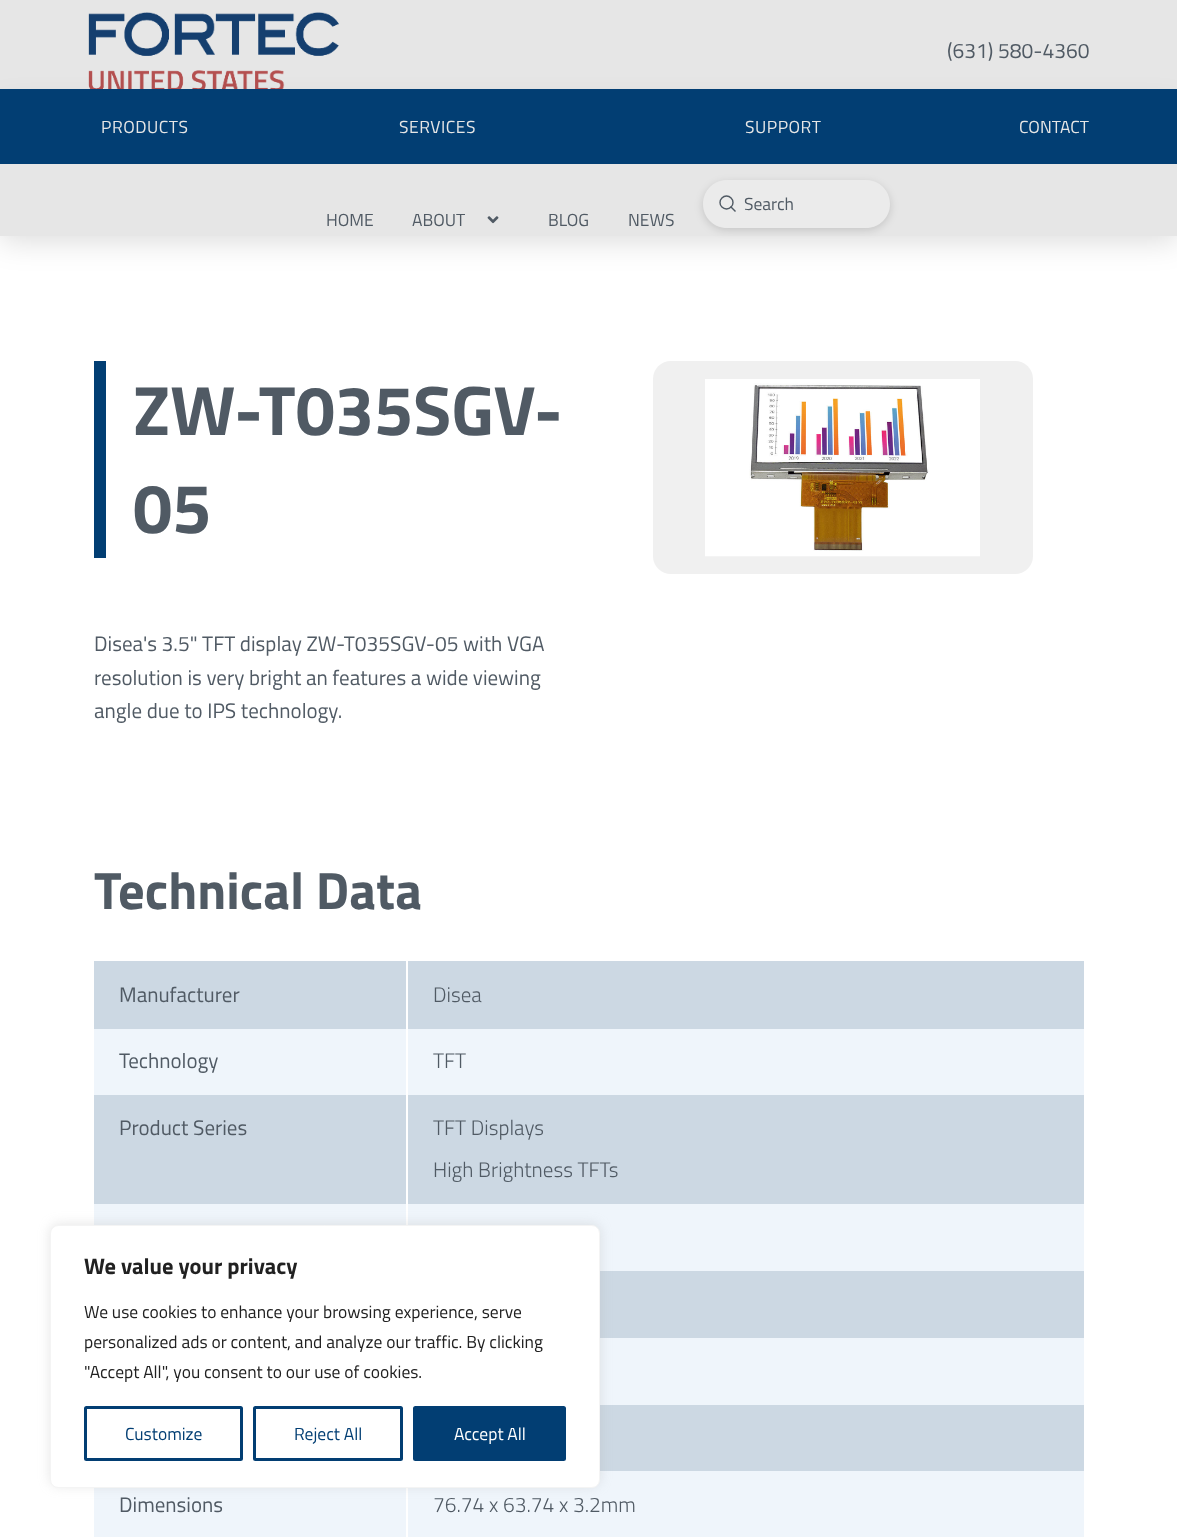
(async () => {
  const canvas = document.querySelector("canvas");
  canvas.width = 1177;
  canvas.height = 1537;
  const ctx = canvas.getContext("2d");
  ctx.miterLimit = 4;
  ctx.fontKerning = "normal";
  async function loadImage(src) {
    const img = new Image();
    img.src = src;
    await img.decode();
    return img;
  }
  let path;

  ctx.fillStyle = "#ffffff";
  ctx.fillRect(0, 0, 1177, 1537);
  ctx.fillStyle = "#e6e6e6";
  ctx.fillRect(0, 0, 1177, 89);
  ctx.drawImage(await loadImage("img/1.png"), 88, 12, 251, 77);
  ctx.fillStyle = "rgba(0, 0, 0, 0.15)";
  ctx.filter = "blur(15.5px)";
  ctx.beginPath();
  ctx.rect(0, 108, 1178, 132);
  ctx.fill();
  ctx.filter = "none";
  ctx.fillStyle = "#e6e6e6";
  ctx.fillRect(0, 164, 1177, 72);
  ctx.fillStyle = "#023e73";
  ctx.fillRect(0, 89, 1177, 75);
  ctx.save();
  path = new Path2D("M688 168H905V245H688ZM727 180H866C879.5 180 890 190.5 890 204C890 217.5 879.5 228 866 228H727C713.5 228 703 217.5 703 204C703 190.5 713.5 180 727 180Z");
  ctx.clip(path, "evenodd");
  ctx.fillStyle = "rgba(0, 0, 0, 0.15)";
  ctx.filter = "blur(4.5px)";
  ctx.beginPath();
  ctx.roundRect(703, 183, 187, 47, 23.5);
  ctx.fill();
  ctx.filter = "none";
  ctx.restore();
  ctx.fillStyle = "rgba(255, 255, 255, 0.2)";
  ctx.beginPath();
  ctx.roundRect(703, 180, 187, 48, 24);
  ctx.fill();
  ctx.beginPath();
  ctx.arc(726.5, 202.5, 6.5, 0, Math.PI * 2);
  ctx.strokeStyle = "#505a64";
  ctx.lineWidth = 1.4;
  ctx.stroke();
  path = new Path2D("M735 211L731 207");
  ctx.lineCap = "square";
  ctx.stroke(path);
  ctx.drawImage(await loadImage("img/2.png"), 487, 216, 12, 8);
  ctx.fillStyle = "#023e73";
  ctx.fillRect(94, 361, 12, 197);
  ctx.fillStyle = "#f0f0f0";
  ctx.beginPath();
  ctx.roundRect(653, 361, 380, 213, 18);
  ctx.fill();
  ctx.drawImage(await loadImage("img/3.png"), 705, 379, 275, 178);
  for (const [x, y, w, h, color] of [
    [94, 961, 312, 68, "#ccd8e3"],
    [408, 961, 676, 68, "#ccd8e3"],
    [94, 1029, 312, 66, "#eff5fb"],
    [408, 1029, 676, 66, "#eff5fb"],
    [94, 1095, 312, 109, "#ccd8e3"],
    [408, 1095, 676, 109, "#ccd8e3"],
    [94, 1204, 312, 21, "#eff5fb"],
    [408, 1204, 676, 67, "#eff5fb"],
    [600, 1271, 484, 67, "#ccd8e3"],
    [600, 1338, 484, 67, "#eff5fb"],
    [600, 1405, 484, 66, "#ccd8e3"],
    [94, 1488, 312, 49, "#eff5fb"],
    [408, 1471, 676, 66, "#eff5fb"],
  ]) {
    ctx.fillStyle = color;
    ctx.fillRect(x, y, w, h);
  }
  ctx.fillStyle = "rgba(172, 171, 171, 0.3)";
  ctx.filter = "blur(6px)";
  ctx.beginPath();
  ctx.roundRect(50, 1224, 550, 262, 8);
  ctx.fill();
  ctx.filter = "none";
  ctx.fillStyle = "#ffffff";
  ctx.beginPath();
  ctx.roundRect(50.5, 1225.5, 549, 262, 7.5);
  ctx.fill();
  ctx.strokeStyle = "#f4f4f4";
  ctx.lineWidth = 1;
  ctx.stroke();
  ctx.beginPath();
  ctx.roundRect(85.5, 1407.5, 156, 52, 1);
  ctx.strokeStyle = "#023e73";
  ctx.lineWidth = 3;
  ctx.stroke();
  ctx.beginPath();
  ctx.roundRect(254.5, 1407.5, 147, 52, 1);
  ctx.stroke();
  ctx.fillStyle = "#023e73";
  ctx.beginPath();
  ctx.roundRect(414.5, 1407.5, 150, 52, 1);
  ctx.fill();
  ctx.stroke();
  ctx.font = "21px Titillium Web";
  ctx.fillStyle = "#505a64";
  ctx.fillText("(631) 580-4360", 947, 58);
  ctx.letterSpacing = "0.5px";
  ctx.font = "17.5px Titillium Web";
  ctx.fillStyle = "#e6e6e6";
  for (const [text, x, y] of [
    ["PRODUCTS", 101, 133],
    ["SERVICES", 399, 133],
    ["SUPPORT", 745, 133],
  ]) {
    ctx.fillText(text, x, y);
  }
  ctx.letterSpacing = "0px";
  ctx.fillText("CONTACT", 1019, 133);
  ctx.fillStyle = "#505a64";
  for (const [text, x, y] of [
    ["Search", 744, 210],
    ["HOME", 326, 226],
    ["ABOUT", 412, 226],
    ["BLOG", 548, 226],
    ["NEWS", 628, 226],
  ]) {
    ctx.fillText(text, x, y);
  }
  ctx.font = "bold 70px Titillium Web";
  ctx.fillText("ZW-T035SGV-", 133, 435);
  ctx.fillText("05", 133, 533);
  ctx.font = "21px Titillium Web";
  for (const [text, x, y] of [
    ["Disea's 3.5\" TFT display ZW-T035SGV-05 with VGA", 94, 651],
    ["resolution is very bright an features a wide viewing", 94, 685],
    ["angle due to IPS technology.", 94, 718],
  ]) {
    ctx.fillText(text, x, y);
  }
  ctx.font = "bold 52.5px Titillium Web";
  ctx.fillText("Technical Data", 94, 909);
  ctx.font = "21px Titillium Web";
  ctx.fillText("Manufacturer", 119, 1002);
  ctx.font = "300 21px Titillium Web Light";
  ctx.fillText("Disea", 433, 1002);
  ctx.font = "21px Titillium Web";
  ctx.fillText("Technology", 119, 1068);
  ctx.font = "300 21px Titillium Web Light";
  ctx.fillText("TFT", 433, 1068);
  ctx.font = "21px Titillium Web";
  ctx.fillText("Product Series", 119, 1135);
  ctx.font = "300 21px Titillium Web Light";
  ctx.fillText("TFT Displays", 433, 1135);
  ctx.fillText("High Brightness TFTs", 433, 1177);
  ctx.font = "21px Titillium Web";
  ctx.fillText("Dimensions", 119, 1512);
  ctx.font = "300 21px Titillium Web Light";
  ctx.fillText("76.74 x 63.74 x 3.2mm", 433, 1512);
  ctx.font = "bold 22.5px Titillium Web";
  ctx.fillStyle = "#212121";
  ctx.fillText("We value your privacy", 84, 1274);
  ctx.font = "17.5px Titillium Web";
  for (const [text, x, y] of [
    ["We use cookies to enhance your browsing experience, serve", 84, 1318],
    ["personalized ads or content, and analyze our traffic. By clicking", 84, 1348],
    ["\"Accept All\", you consent to our use of cookies.", 84, 1378],
  ]) {
    ctx.fillText(text, x, y);
  }
  ctx.fillStyle = "#023e73";
  ctx.fillText("Customize", 125, 1440);
  ctx.fillText("Reject All", 294, 1440);
  ctx.fillStyle = "#ffffff";
  ctx.fillText("Accept All", 454, 1440);
})();
